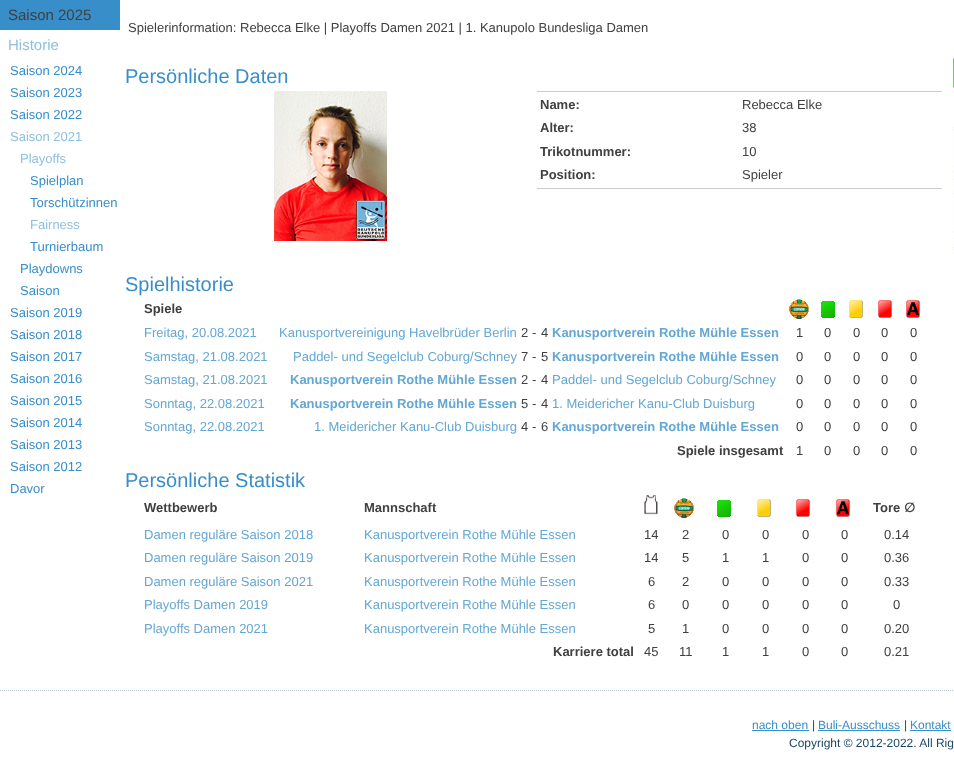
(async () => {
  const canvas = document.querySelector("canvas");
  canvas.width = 954;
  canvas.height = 777;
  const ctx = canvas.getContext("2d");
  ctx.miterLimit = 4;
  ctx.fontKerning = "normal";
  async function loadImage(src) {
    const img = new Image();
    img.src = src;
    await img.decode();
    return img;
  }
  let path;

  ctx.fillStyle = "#ffffff";
  ctx.fillRect(0, 0, 954, 777);
  ctx.fillStyle = "#378ec8";
  ctx.fillRect(0, 0, 120, 30);
  ctx.drawImage(await loadImage("img/1.png"), 274, 91, 113, 150);
  ctx.fillStyle = "#cccccc";
  ctx.fillRect(537, 91, 405, 1);
  ctx.fillRect(537, 188, 405, 1);
  ctx.drawImage(await loadImage("img/2.png"), 789, 299, 20, 20);
  ctx.drawImage(await loadImage("img/3.png"), 821, 301, 14, 17);
  ctx.drawImage(await loadImage("img/4.png"), 849, 300, 14, 18);
  ctx.drawImage(await loadImage("img/5.png"), 878, 300, 14, 18);
  ctx.drawImage(await loadImage("img/6.png"), 906, 300, 14, 18);
  ctx.drawImage(await loadImage("img/7.png"), 644, 495, 14, 20);
  ctx.drawImage(await loadImage("img/2.png"), 674, 498, 20, 20);
  ctx.drawImage(await loadImage("img/3.png"), 717, 500, 14, 17);
  ctx.drawImage(await loadImage("img/4.png"), 757, 499, 14, 18);
  ctx.drawImage(await loadImage("img/5.png"), 796, 499, 14, 18);
  ctx.drawImage(await loadImage("img/6.png"), 836, 499, 14, 18);
  ctx.drawImage(await loadImage("img/8.png"), 953, 57, 1, 35);
  ctx.drawImage(await loadImage("img/9.png"), 953, 126, 1, 128);
  path = new Path2D("M0 690.5H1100");
  ctx.strokeStyle = "#afc6d4";
  ctx.setLineDash([1, 1]);
  ctx.stroke(path);
  for (const [x, y, w, h, color] of [
    [752, 730, 57, 1, "#378ec8"],
    [818, 730, 82, 1, "#378ec8"],
    [910, 730, 41, 1, "#378ec8"],
  ]) {
    ctx.fillStyle = color;
    ctx.fillRect(x, y, w, h);
  }
  ctx.font = "15px Liberation Sans";
  ctx.fillStyle = "#404040";
  ctx.fillText("Saison 2025", 8, 20);
  ctx.fillStyle = "#8fc0e0";
  ctx.fillText("Historie", 8, 50);
  ctx.font = "13px Liberation Sans";
  ctx.fillStyle = "#378ec8";
  for (const [text, x, y] of [
    ["Saison 2024", 10, 75],
    ["Saison 2023", 10, 97],
    ["Saison 2022", 10, 119],
  ]) {
    ctx.fillText(text, x, y);
  }
  ctx.fillStyle = "#8fc0e0";
  ctx.fillText("Saison 2021", 10, 141);
  ctx.fillText("Playoffs", 20, 163);
  ctx.fillStyle = "#378ec8";
  ctx.fillText("Spielplan", 30, 185);
  ctx.fillText("Torschützinnen", 30, 207);
  ctx.fillStyle = "#8fc0e0";
  ctx.fillText("Fairness", 30, 229);
  ctx.fillStyle = "#378ec8";
  for (const [text, x, y] of [
    ["Turnierbaum", 30, 251],
    ["Playdowns", 20, 273],
    ["Saison", 20, 295],
    ["Saison 2019", 10, 317],
    ["Saison 2018", 10, 339],
    ["Saison 2017", 10, 361],
    ["Saison 2016", 10, 383],
    ["Saison 2015", 10, 405],
    ["Saison 2014", 10, 427],
    ["Saison 2013", 10, 449],
    ["Saison 2012", 10, 471],
    ["Davor", 10, 493],
  ]) {
    ctx.fillText(text, x, y);
  }
  ctx.fillStyle = "#404040";
  ctx.fillText("Spielerinformation: Rebecca Elke | Playoffs Damen 2021 | 1. Kanupolo Bundesliga Damen", 128, 32);
  ctx.font = "20px Liberation Sans";
  ctx.fillStyle = "#378ec8";
  ctx.fillText("Persönliche Daten", 125, 83);
  ctx.font = "bold 13px Liberation Sans";
  ctx.fillStyle = "#404040";
  ctx.fillText("Name:", 540, 109);
  ctx.font = "13px Liberation Sans";
  ctx.fillText("Rebecca Elke", 742, 109);
  ctx.font = "bold 13px Liberation Sans";
  ctx.fillText("Alter:", 540, 132);
  ctx.font = "13px Liberation Sans";
  ctx.fillText("38", 742, 132);
  ctx.font = "bold 13px Liberation Sans";
  ctx.fillText("Trikotnummer:", 540, 156);
  ctx.font = "13px Liberation Sans";
  ctx.fillText("10", 742, 156);
  ctx.font = "bold 13px Liberation Sans";
  ctx.fillText("Position:", 540, 179);
  ctx.font = "13px Liberation Sans";
  ctx.fillText("Spieler", 742, 179);
  ctx.font = "20px Liberation Sans";
  ctx.fillStyle = "#378ec8";
  ctx.fillText("Spielhistorie", 125, 291);
  ctx.font = "bold 13px Liberation Sans";
  ctx.fillStyle = "#404040";
  ctx.fillText("Spiele", 144, 313);
  ctx.font = "13px Liberation Sans";
  ctx.fillStyle = "#63a7d4";
  ctx.fillText("Freitag, 20.08.2021", 144, 337);
  ctx.fillText("Kanusportvereinigung Havelbrüder Berlin", 279, 337);
  ctx.fillStyle = "#404040";
  for (const [text, x, y] of [
    ["2", 521, 337],
    ["-", 532, 337],
    ["4", 541, 337],
  ]) {
    ctx.fillText(text, x, y);
  }
  ctx.font = "bold 13px Liberation Sans";
  ctx.fillStyle = "#63a7d4";
  ctx.fillText("Kanusportverein Rothe Mühle Essen", 552, 337);
  ctx.font = "13px Liberation Sans";
  ctx.fillStyle = "#404040";
  for (const [text, x, y] of [
    ["1", 796, 337],
    ["0", 824, 337],
    ["0", 853, 337],
    ["0", 881, 337],
    ["0", 910, 337],
  ]) {
    ctx.fillText(text, x, y);
  }
  ctx.fillStyle = "#63a7d4";
  ctx.fillText("Samstag, 21.08.2021", 144, 361);
  ctx.fillText("Paddel- und Segelclub Coburg/Schney", 293, 361);
  ctx.fillStyle = "#404040";
  for (const [text, x, y] of [
    ["7", 521, 361],
    ["-", 532, 361],
    ["5", 541, 361],
  ]) {
    ctx.fillText(text, x, y);
  }
  ctx.font = "bold 13px Liberation Sans";
  ctx.fillStyle = "#63a7d4";
  ctx.fillText("Kanusportverein Rothe Mühle Essen", 552, 361);
  ctx.font = "13px Liberation Sans";
  ctx.fillStyle = "#404040";
  for (const [text, x, y] of [
    ["0", 796, 361],
    ["0", 824, 361],
    ["0", 853, 361],
    ["0", 881, 361],
    ["0", 910, 361],
  ]) {
    ctx.fillText(text, x, y);
  }
  ctx.fillStyle = "#63a7d4";
  ctx.fillText("Samstag, 21.08.2021", 144, 384);
  ctx.font = "bold 13px Liberation Sans";
  ctx.fillText("Kanusportverein Rothe Mühle Essen", 290, 384);
  ctx.font = "13px Liberation Sans";
  ctx.fillStyle = "#404040";
  for (const [text, x, y] of [
    ["2", 521, 384],
    ["-", 532, 384],
    ["4", 541, 384],
  ]) {
    ctx.fillText(text, x, y);
  }
  ctx.fillStyle = "#63a7d4";
  ctx.fillText("Paddel- und Segelclub Coburg/Schney", 552, 384);
  ctx.fillStyle = "#404040";
  for (const [text, x, y] of [
    ["0", 796, 384],
    ["0", 824, 384],
    ["0", 853, 384],
    ["0", 881, 384],
    ["0", 910, 384],
  ]) {
    ctx.fillText(text, x, y);
  }
  ctx.fillStyle = "#63a7d4";
  ctx.fillText("Sonntag, 22.08.2021", 144, 408);
  ctx.font = "bold 13px Liberation Sans";
  ctx.fillText("Kanusportverein Rothe Mühle Essen", 290, 408);
  ctx.font = "13px Liberation Sans";
  ctx.fillStyle = "#404040";
  for (const [text, x, y] of [
    ["5", 521, 408],
    ["-", 532, 408],
    ["4", 541, 408],
  ]) {
    ctx.fillText(text, x, y);
  }
  ctx.fillStyle = "#63a7d4";
  ctx.fillText("1. Meidericher Kanu-Club Duisburg", 552, 408);
  ctx.fillStyle = "#404040";
  for (const [text, x, y] of [
    ["0", 796, 408],
    ["0", 824, 408],
    ["0", 853, 408],
    ["0", 881, 408],
    ["0", 910, 408],
  ]) {
    ctx.fillText(text, x, y);
  }
  ctx.fillStyle = "#63a7d4";
  ctx.fillText("Sonntag, 22.08.2021", 144, 431);
  ctx.fillText("1. Meidericher Kanu-Club Duisburg", 314, 431);
  ctx.fillStyle = "#404040";
  for (const [text, x, y] of [
    ["4", 521, 431],
    ["-", 532, 431],
    ["6", 541, 431],
  ]) {
    ctx.fillText(text, x, y);
  }
  ctx.font = "bold 13px Liberation Sans";
  ctx.fillStyle = "#63a7d4";
  ctx.fillText("Kanusportverein Rothe Mühle Essen", 552, 431);
  ctx.font = "13px Liberation Sans";
  ctx.fillStyle = "#404040";
  for (const [text, x, y] of [
    ["0", 796, 431],
    ["0", 824, 431],
    ["0", 853, 431],
    ["0", 881, 431],
    ["0", 910, 431],
  ]) {
    ctx.fillText(text, x, y);
  }
  ctx.font = "bold 13px Liberation Sans";
  ctx.fillText("Spiele insgesamt", 677, 455);
  ctx.font = "13px Liberation Sans";
  for (const [text, x, y] of [
    ["1", 796, 455],
    ["0", 824, 455],
    ["0", 853, 455],
    ["0", 881, 455],
    ["0", 910, 455],
  ]) {
    ctx.fillText(text, x, y);
  }
  ctx.font = "20px Liberation Sans";
  ctx.fillStyle = "#378ec8";
  ctx.fillText("Persönliche Statistik", 125, 487);
  ctx.font = "bold 13px Liberation Sans";
  ctx.fillStyle = "#404040";
  for (const [text, x, y] of [
    ["Wettbewerb", 144, 512],
    ["Mannschaft", 364, 512],
    ["Tore", 873, 512],
  ]) {
    ctx.fillText(text, x, y);
  }
  ctx.font = "bold 13px DejaVu Sans";
  ctx.fillText("∅", 904, 512);
  ctx.font = "13px Liberation Sans";
  ctx.fillStyle = "#63a7d4";
  ctx.fillText("Damen reguläre Saison 2018", 144, 539);
  ctx.fillText("Kanusportverein Rothe Mühle Essen", 364, 539);
  ctx.fillStyle = "#404040";
  for (const [text, x, y] of [
    ["14", 644, 539],
    ["2", 682, 539],
    ["0", 722, 539],
    ["0", 762, 539],
    ["0", 802, 539],
    ["0", 841, 539],
    ["0.14", 884, 539],
  ]) {
    ctx.fillText(text, x, y);
  }
  ctx.fillStyle = "#63a7d4";
  ctx.fillText("Damen reguläre Saison 2019", 144, 562);
  ctx.fillText("Kanusportverein Rothe Mühle Essen", 364, 562);
  ctx.fillStyle = "#404040";
  for (const [text, x, y] of [
    ["14", 644, 562],
    ["5", 682, 562],
    ["1", 722, 562],
    ["1", 762, 562],
    ["0", 802, 562],
    ["0", 841, 562],
    ["0.36", 884, 562],
  ]) {
    ctx.fillText(text, x, y);
  }
  ctx.fillStyle = "#63a7d4";
  ctx.fillText("Damen reguläre Saison 2021", 144, 586);
  ctx.fillText("Kanusportverein Rothe Mühle Essen", 364, 586);
  ctx.fillStyle = "#404040";
  for (const [text, x, y] of [
    ["6", 648, 586],
    ["2", 682, 586],
    ["0", 722, 586],
    ["0", 762, 586],
    ["0", 802, 586],
    ["0", 841, 586],
    ["0.33", 884, 586],
  ]) {
    ctx.fillText(text, x, y);
  }
  ctx.fillStyle = "#63a7d4";
  ctx.fillText("Playoffs Damen 2019", 144, 609);
  ctx.fillText("Kanusportverein Rothe Mühle Essen", 364, 609);
  ctx.fillStyle = "#404040";
  for (const [text, x, y] of [
    ["6", 648, 609],
    ["0", 682, 609],
    ["0", 722, 609],
    ["0", 762, 609],
    ["0", 802, 609],
    ["0", 841, 609],
    ["0", 893, 609],
  ]) {
    ctx.fillText(text, x, y);
  }
  ctx.fillStyle = "#63a7d4";
  ctx.fillText("Playoffs Damen 2021", 144, 633);
  ctx.fillText("Kanusportverein Rothe Mühle Essen", 364, 633);
  ctx.fillStyle = "#404040";
  for (const [text, x, y] of [
    ["5", 648, 633],
    ["1", 682, 633],
    ["0", 722, 633],
    ["0", 762, 633],
    ["0", 802, 633],
    ["0", 841, 633],
    ["0.20", 884, 633],
  ]) {
    ctx.fillText(text, x, y);
  }
  ctx.font = "bold 13px Liberation Sans";
  ctx.fillText("Karriere total", 553, 656);
  ctx.font = "13px Liberation Sans";
  for (const [text, x, y] of [
    ["45", 644, 656],
    ["11", 679, 656],
    ["1", 722, 656],
    ["1", 762, 656],
    ["0", 802, 656],
    ["0", 841, 656],
    ["0.21", 884, 656],
  ]) {
    ctx.fillText(text, x, y);
  }
  ctx.font = "12px Liberation Sans";
  ctx.fillStyle = "#378ec8";
  ctx.fillText("nach oben", 752, 729);
  ctx.fillStyle = "#1b4764";
  ctx.fillText("|", 812, 729);
  ctx.fillStyle = "#378ec8";
  ctx.fillText("Buli-Ausschuss", 818, 729);
  ctx.fillStyle = "#1b4764";
  ctx.fillText("|", 904, 729);
  ctx.fillStyle = "#378ec8";
  ctx.fillText("Kontakt", 910, 729);
  ctx.fillStyle = "#1b4764";
  ctx.fillText("Copyright © 2012-2022. All Rig", 789, 747);
})();
